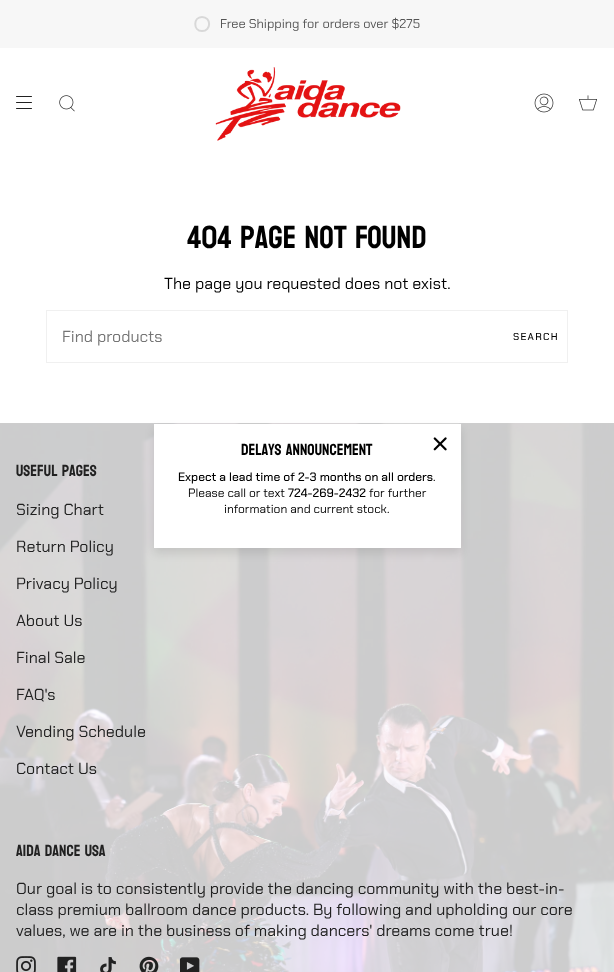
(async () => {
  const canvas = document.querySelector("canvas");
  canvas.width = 614;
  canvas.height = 972;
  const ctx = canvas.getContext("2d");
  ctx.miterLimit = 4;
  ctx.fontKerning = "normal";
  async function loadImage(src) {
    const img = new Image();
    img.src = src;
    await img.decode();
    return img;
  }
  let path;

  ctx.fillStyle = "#ffffff";
  ctx.fillRect(0, 0, 614, 972);
  ctx.fillStyle = "#f7f7f7";
  ctx.fillRect(0, 0, 614, 48);
  path = new Path2D("M202 17C193 17 193 31 202 31C211.5 31 211.5 17 202 17Z");
  ctx.strokeStyle = "#d8d8d8";
  ctx.lineWidth = 2;
  ctx.stroke(path);
  ctx.fillStyle = "#212121";
  ctx.beginPath();
  ctx.roundRect(16, 96, 16, 1, 0.5);
  ctx.fill();
  ctx.beginPath();
  ctx.roundRect(16, 102, 16, 1, 0.5);
  ctx.fill();
  ctx.beginPath();
  ctx.roundRect(16, 108, 16, 1, 0.5);
  ctx.fill();
  ctx.drawImage(await loadImage("img/1.png"), 59, 95, 16, 17);
  ctx.drawImage(await loadImage("img/2.png"), 215, 67, 186, 74);
  ctx.drawImage(await loadImage("img/3.png"), 534, 93, 20, 20);
  ctx.drawImage(await loadImage("img/4.png"), 579, 95, 18, 16);
  ctx.strokeStyle = "#f0f0f0";
  ctx.lineWidth = 1;
  ctx.strokeRect(46.5, 310.5, 521, 52);
  ctx.drawImage(await loadImage("img/6.png"), 0, 423, 614, 549);
  ctx.fillStyle = "rgba(0, 0, 0, 0.1)";
  ctx.filter = "blur(5px)";
  ctx.beginPath();
  ctx.rect(154, 429, 307, 124);
  ctx.fill();
  ctx.filter = "none";
  ctx.fillStyle = "#ffffff";
  ctx.fillRect(154, 424, 307, 124);
  ctx.drawImage(await loadImage("img/5.png"), 433, 437, 14, 14);
  ctx.drawImage(await loadImage("img/7.png"), 16, 956, 20, 16);
  ctx.drawImage(await loadImage("img/8.png"), 57, 956, 20, 16);
  ctx.drawImage(await loadImage("img/9.png"), 100, 957, 16, 15);
  ctx.drawImage(await loadImage("img/10.png"), 139, 956, 20, 16);
  ctx.drawImage(await loadImage("img/11.png"), 180, 957, 20, 15);
  ctx.font = "12.75px Chakra Petch";
  ctx.fillStyle = "#545454";
  ctx.fillText("Free Shipping for orders over $275", 220, 28);
  ctx.font = "32px Bayon";
  ctx.fillStyle = "#000000";
  ctx.fillText("404 Page Not Found", 187, 248);
  ctx.font = "16px Chakra Petch";
  ctx.fillText("The page you requested does not exist.", 164, 289);
  ctx.fillStyle = "#757575";
  ctx.fillText("Find products", 62, 342);
  ctx.letterSpacing = "1.25px";
  ctx.font = "500 10px Chakra Petch";
  ctx.fillStyle = "#000000";
  ctx.fillText("SEARCH", 513, 340);
  ctx.letterSpacing = "0px";
  ctx.font = "16px Bayon";
  ctx.fillText("Delays Announcement", 241, 455);
  ctx.font = "500 12px Chakra Petch";
  ctx.fillText("Expect a lead time of 2-3 months on all orders", 178, 481);
  ctx.font = "12px Chakra Petch";
  ctx.fillText(".", 433, 481);
  ctx.fillText("Please call or text", 188, 497);
  ctx.font = "500 12px Chakra Petch";
  ctx.fillText("724-269-2432", 288, 497);
  ctx.font = "12px Chakra Petch";
  ctx.fillText("for further", 369, 497);
  ctx.fillText("information and current stock.", 224, 513);
  ctx.font = "16px Bayon";
  ctx.fillStyle = "#212121";
  ctx.fillText("Useful Pages", 16, 476);
  ctx.font = "16px Chakra Petch";
  for (const [text, x, y] of [
    ["Sizing Chart", 16, 515],
    ["Return Policy", 16, 552],
    ["Privacy Policy", 16, 589],
    ["About Us", 16, 626],
    ["Final Sale", 16, 663],
    ["FAQ's", 16, 700],
    ["Vending Schedule", 16, 737],
    ["Contact Us", 16, 774],
  ]) {
    ctx.fillText(text, x, y);
  }
  ctx.font = "16px Bayon";
  ctx.fillText("Aida Dance USA", 16, 856);
  ctx.font = "16px Chakra Petch";
  for (const [text, x, y] of [
    ["Our goal is to consistently provide the dancing community with the best-in-", 16, 894],
    ["class premium ballroom dance products. By following and upholding our core", 16, 915],
    ["values, we are in the business of making dancers' dreams come true!", 16, 936],
  ]) {
    ctx.fillText(text, x, y);
  }
})();
